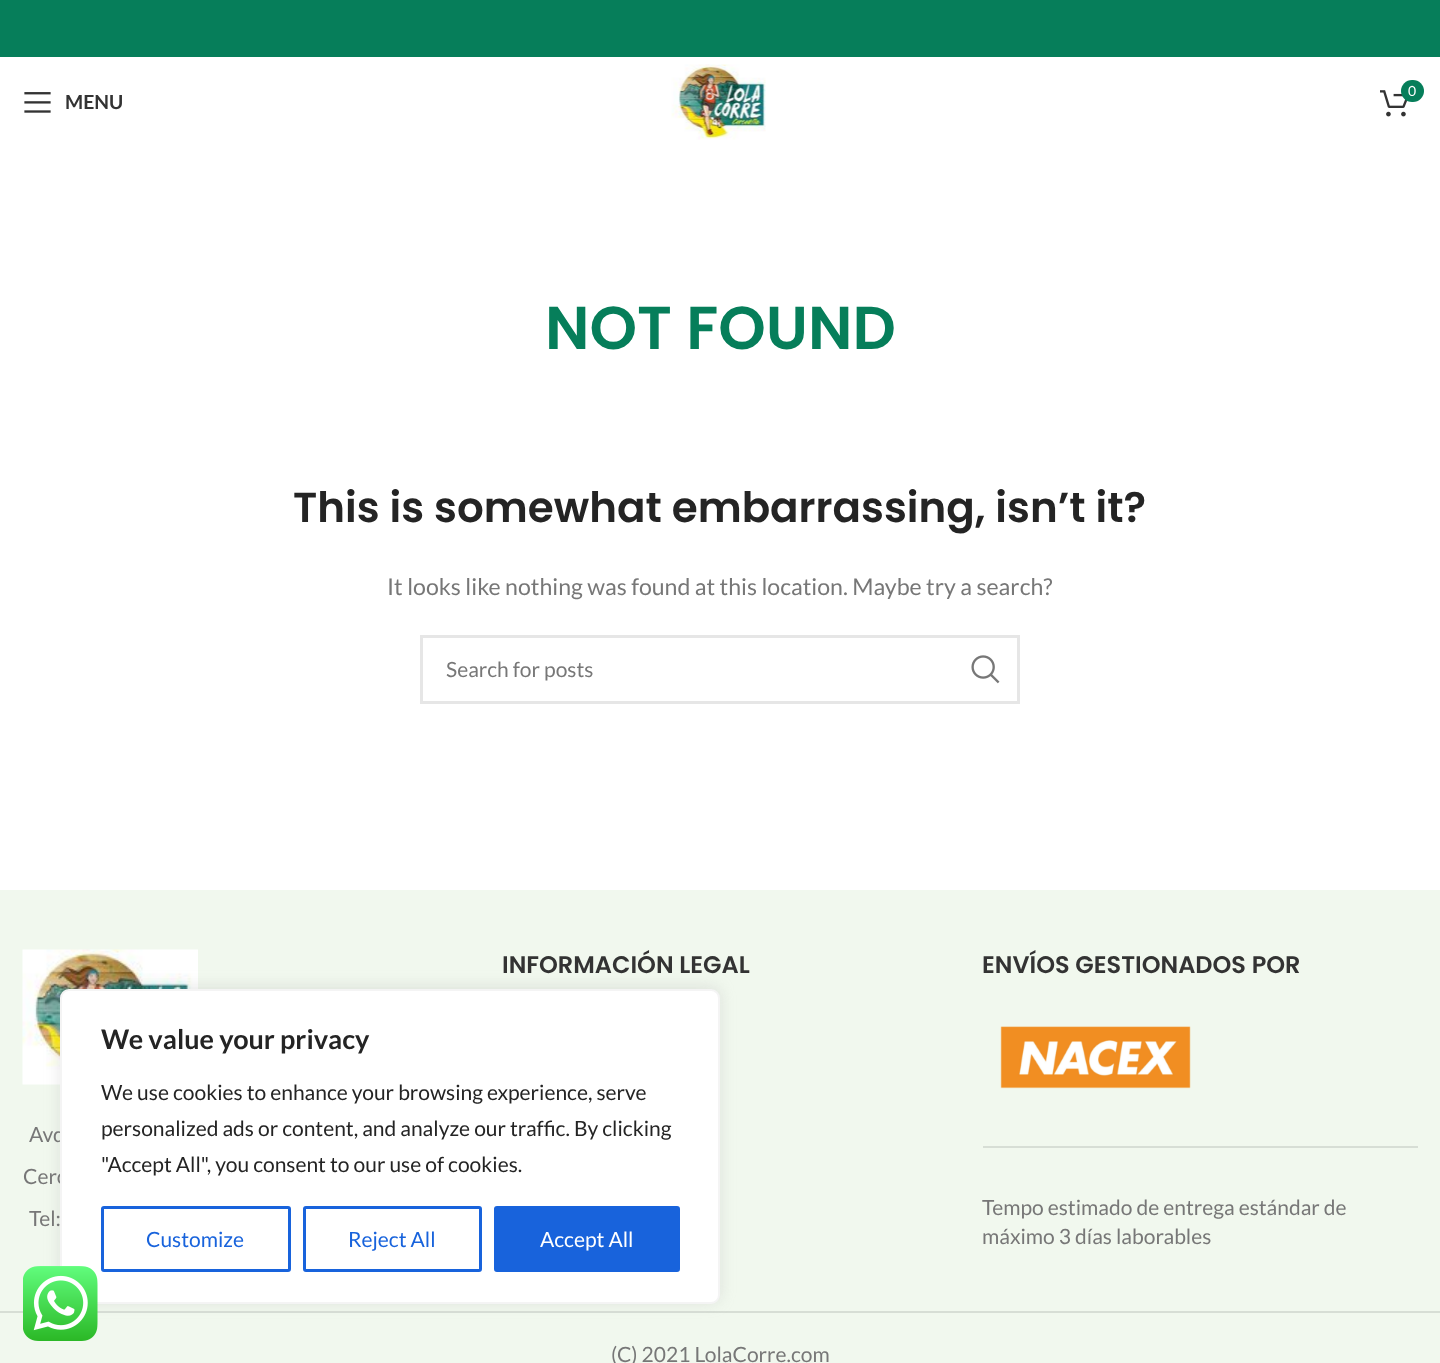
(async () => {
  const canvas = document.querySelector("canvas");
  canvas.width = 1440;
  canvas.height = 1363;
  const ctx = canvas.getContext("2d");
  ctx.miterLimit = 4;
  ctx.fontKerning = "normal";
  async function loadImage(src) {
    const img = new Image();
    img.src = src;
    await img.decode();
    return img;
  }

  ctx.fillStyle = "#ffffff";
  ctx.fillRect(0, 0, 1440, 1363);
  ctx.fillStyle = "#067e5a";
  ctx.fillRect(0, 0, 1440, 57);
  ctx.drawImage(await loadImage("img/1.png"), 671, 64, 95, 76);
  ctx.drawImage(await loadImage("img/2.png"), 1380, 90, 28, 27);
  ctx.beginPath();
  ctx.roundRect(1401, 80, 23, 22, 11);
  ctx.fill();
  ctx.drawImage(await loadImage("img/3.png"), 24, 92, 27, 21);
  ctx.strokeStyle = "#e6e6e6";
  ctx.lineWidth = 3;
  ctx.strokeRect(421.5, 636.5, 597, 66);
  ctx.drawImage(await loadImage("img/4.png"), 971, 655, 29, 29);
  ctx.fillStyle = "#f1f8ee";
  ctx.fillRect(0, 890, 1440, 473);
  ctx.drawImage(await loadImage("img/5.png"), 22, 949, 176, 136);
  ctx.fillStyle = "#d7ded5";
  ctx.fillRect(983, 1146, 435, 2);
  ctx.drawImage(await loadImage("img/6.png"), 1000, 1026, 191, 63);
  ctx.fillRect(0, 1311, 1440, 2);
  ctx.fillStyle = "rgba(172, 171, 171, 0.3)";
  ctx.filter = "blur(7.5px)";
  ctx.beginPath();
  ctx.roundRect(60, 987, 660, 315, 9);
  ctx.fill();
  ctx.filter = "none";
  ctx.font = "14px Lato";
  ctx.fillStyle = "#ffffff";
  ctx.fillText("0", 1408, 96);
  ctx.font = "bold 19.5px Lato";
  ctx.fillStyle = "#333333";
  ctx.fillText("MENU", 65, 109);
  ctx.font = "600 60.5px Poppins";
  ctx.fillStyle = "#067e5a";
  ctx.fillText("NOT FOUND", 545, 349);
  ctx.font = "600 42px Poppins";
  ctx.fillStyle = "#242424";
  ctx.fillText("This is somewhat embarrassing, isn’t it?", 293, 522);
  ctx.font = "23.1px Lato";
  ctx.fillStyle = "#777777";
  ctx.fillText("It looks like nothing was found at this location. Maybe try a search?", 387, 595);
  ctx.font = "21px Lato";
  for (const [text, x, y] of [
    ["Search for posts", 446, 677],
    ["Avd", 29, 1142],
    ["Cerc", 23, 1184],
    ["Tel:", 29, 1226],
  ]) {
    ctx.fillText(text, x, y);
  }
  ctx.font = "600 24px Poppins";
  ctx.fillStyle = "#333333";
  ctx.fillText("INFORMACIÓN LEGAL", 502, 973);
  ctx.fillText("ENVÍOS GESTIONADOS POR", 982, 973);
  ctx.font = "21px Lato";
  ctx.fillStyle = "#777777";
  for (const [text, x, y] of [
    ["Tempo estimado de entrega estándar de", 982, 1215],
    ["máximo 3 días laborables", 982, 1244],
    ["(C) 2021 LolaCorre.com", 611, 1362],
  ]) {
    ctx.fillText(text, x, y);
  }
  ctx.fillStyle = "#ffffff";
  ctx.beginPath();
  ctx.roundRect(61, 990, 658, 313, 8);
  ctx.fill();
  ctx.strokeStyle = "#f4f4f4";
  ctx.lineWidth = 2;
  ctx.stroke();
  ctx.font = "bold 27px Lato";
  ctx.fillStyle = "#242424";
  ctx.fillText("We value your privacy", 101, 1049);
  ctx.font = "21px Lato";
  for (const [text, x, y] of [
    ["We use cookies to enhance your browsing experience, serve", 101, 1100],
    ["personalized ads or content, and analyze our traffic. By clicking", 101, 1136],
    ["\"Accept All\", you consent to our use of cookies.", 101, 1172],
  ]) {
    ctx.fillText(text, x, y);
  }
  ctx.beginPath();
  ctx.roundRect(102.5, 1207.5, 187, 63, 1.5);
  ctx.strokeStyle = "#1863dc";
  ctx.lineWidth = 3;
  ctx.stroke();
  ctx.fillStyle = "#1863dc";
  ctx.fillText("Customize", 146, 1247);
  ctx.beginPath();
  ctx.roundRect(304.5, 1207.5, 176, 63, 1.5);
  ctx.stroke();
  ctx.fillText("Reject All", 348, 1247);
  ctx.beginPath();
  ctx.roundRect(495.5, 1207.5, 183, 63, 1.5);
  ctx.fill();
  ctx.stroke();
  ctx.fillStyle = "#ffffff";
  ctx.fillText("Accept All", 540, 1247);
  ctx.drawImage(await loadImage("img/7.png"), 23, 1266, 75, 75);
})();
